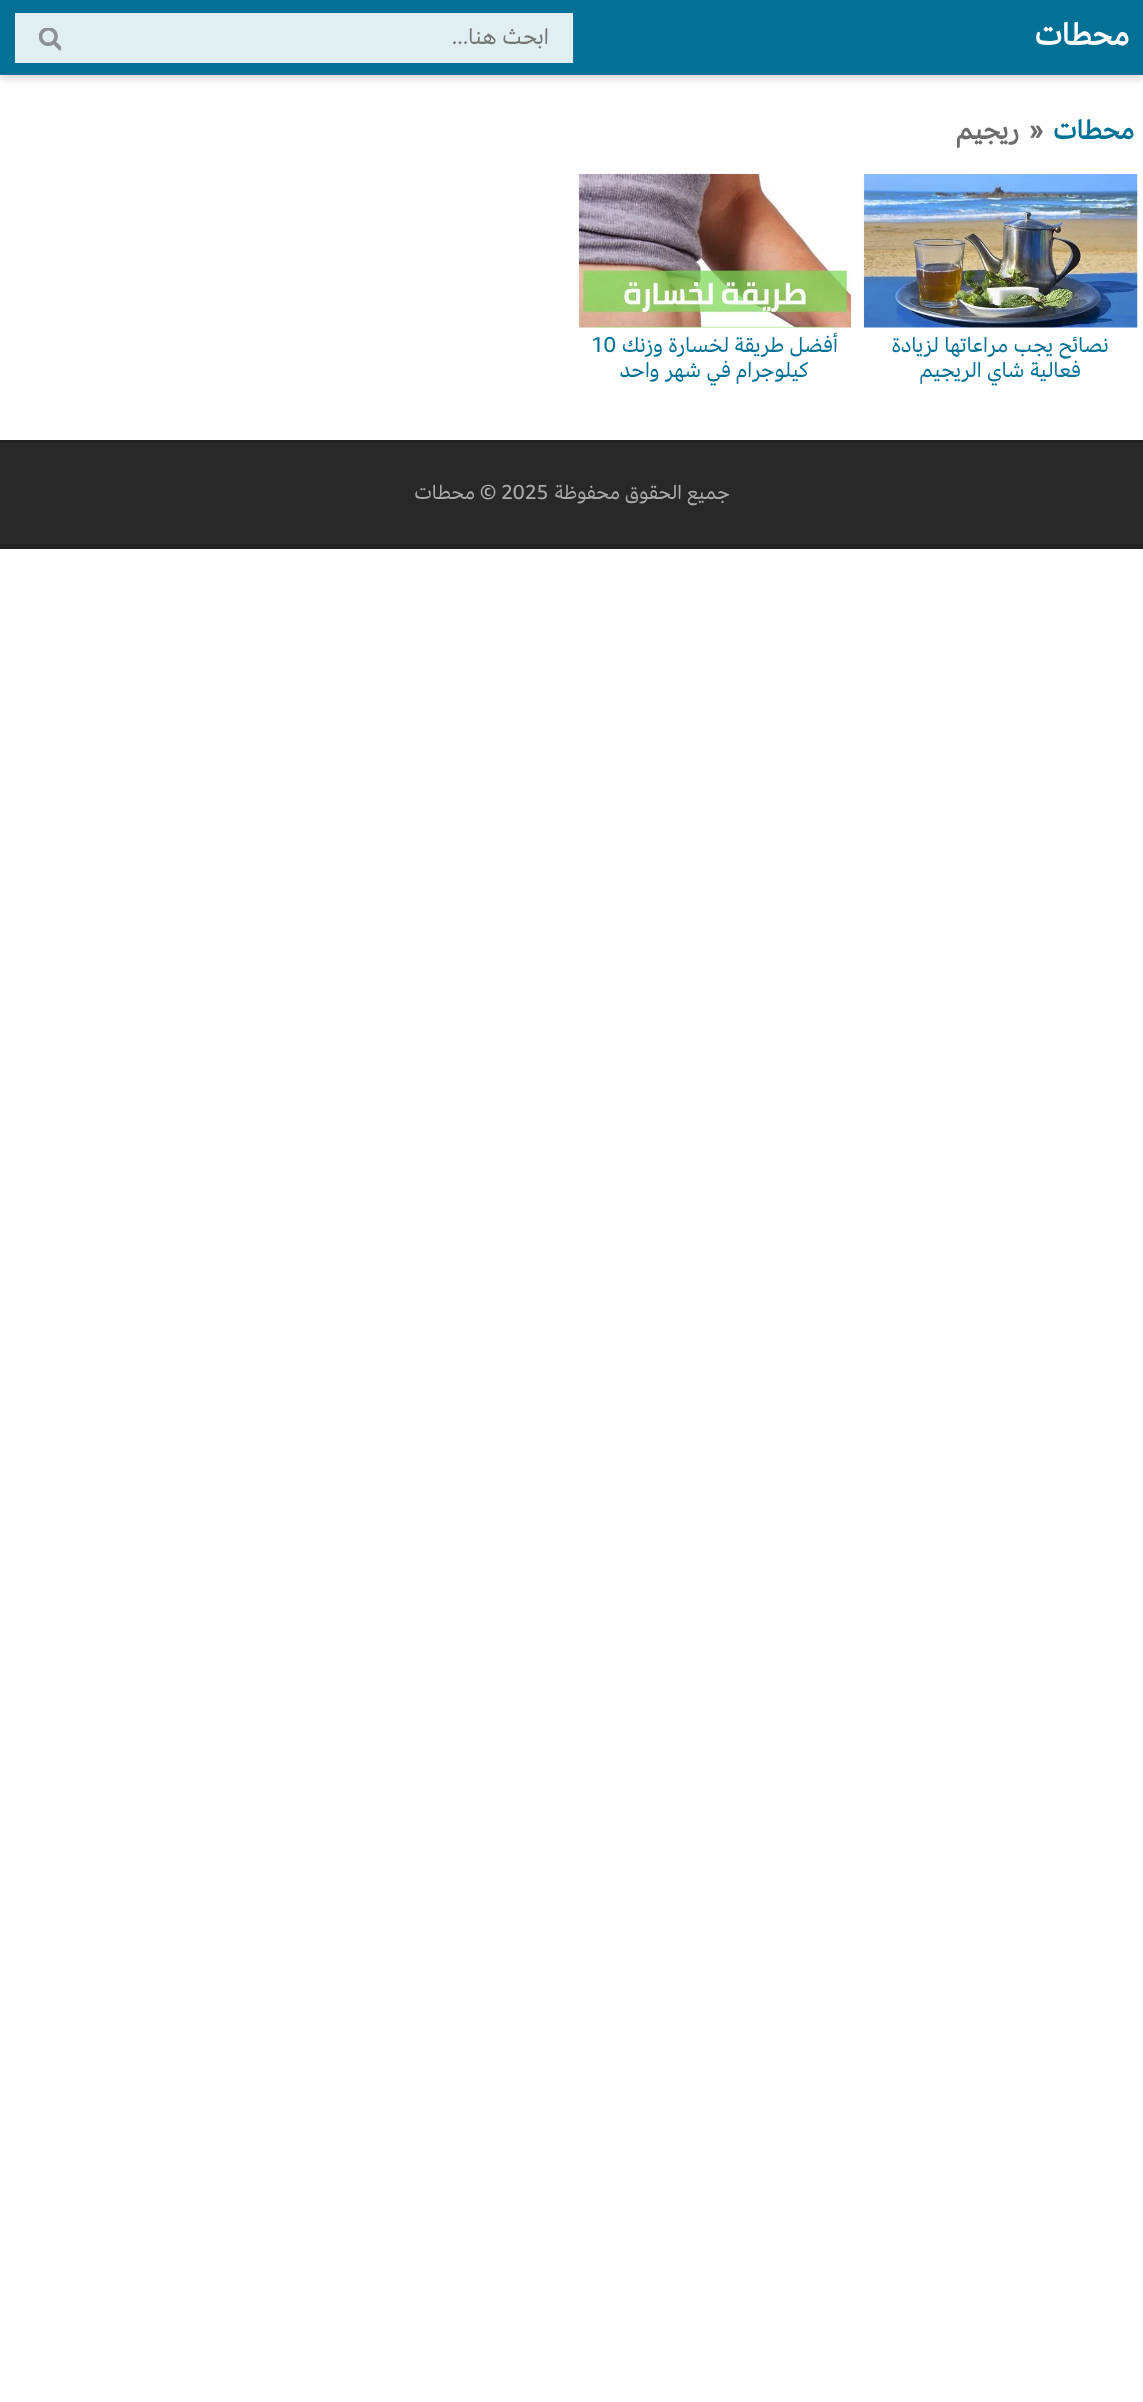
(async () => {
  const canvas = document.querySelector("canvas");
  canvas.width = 1143;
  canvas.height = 2402;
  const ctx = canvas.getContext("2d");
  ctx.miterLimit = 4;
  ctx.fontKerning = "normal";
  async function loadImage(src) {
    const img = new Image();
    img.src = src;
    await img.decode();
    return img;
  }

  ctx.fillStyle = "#ffffff";
  ctx.fillRect(0, 0, 1143, 2402);
  ctx.fillStyle = "rgba(0, 0, 0, 0.18)";
  ctx.filter = "blur(4px)";
  ctx.beginPath();
  ctx.rect(0, 3, 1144, 75);
  ctx.fill();
  ctx.filter = "none";
  ctx.fillStyle = "#037196";
  ctx.fillRect(0, 0, 1143, 75);
  ctx.fillStyle = "#e1eef2";
  ctx.fillRect(15, 13, 558, 50);
  ctx.drawImage(await loadImage("img/1.png"), 39, 28, 22, 23);
  ctx.fillStyle = "rgba(0, 0, 0, 0.4)";
  ctx.filter = "blur(0.5px)";
  ctx.beginPath();
  ctx.rect(864, 174, 274, 222);
  ctx.fill();
  ctx.filter = "none";
  ctx.fillStyle = "#ffffff";
  ctx.fillRect(864, 174, 274, 222);
  ctx.drawImage(await loadImage("img/2.png"), 863, 173, 275, 155);
  ctx.drawImage(await loadImage("img/3.png"), 578, 173, 274, 155);
  for (const [x, y, w, h, color] of [
    [0, 443, 1143, 101, "#282828"],
    [0, 440, 1143, 3, "#222222"],
    [0, 544, 1143, 5, "#222222"],
  ]) {
    ctx.fillStyle = color;
    ctx.fillRect(x, y, w, h);
  }
  ctx.direction = "rtl";
  ctx.font = "bold 31.5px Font";
  ctx.fillStyle = "#ffffff";
  ctx.fillText("محطات", 1129, 45);
  ctx.font = "22.5px Font";
  ctx.fillStyle = "#757575";
  ctx.fillText("ابحث هنا...", 549, 44);
  ctx.font = "bold 27px Font";
  ctx.fillStyle = "#037196";
  ctx.fillText("محطات", 1134, 139);
  ctx.direction = "ltr";
  ctx.fillStyle = "#6c6c6c";
  ctx.fillText("»", 1029, 139);
  ctx.direction = "rtl";
  ctx.fillText("ريجيم", 1019, 139);
  ctx.font = "21.4px Font";
  ctx.fillStyle = "#037196";
  for (const [text, x, y] of [
    ["نصائح يجب مراعاتها لزيادة", 1109, 352],
    ["فعالية شاي الريجيم", 1081, 377],
    ["أفضل طريقة لخسارة وزنك", 838, 352],
  ]) {
    ctx.fillText(text, x, y);
  }
  ctx.direction = "ltr";
  ctx.fillText("10", 591, 352);
  ctx.direction = "rtl";
  ctx.fillText("كيلوجرام في شهر واحد", 809, 377);
  ctx.font = "20.25px Font";
  ctx.fillStyle = "#aaaaaa";
  ctx.fillText("جميع الحقوق محفوظة", 730, 499);
  ctx.direction = "ltr";
  ctx.fillText("2025", 501, 499);
  ctx.direction = "rtl";
  ctx.fillText("© محطات", 496, 499);
})();
